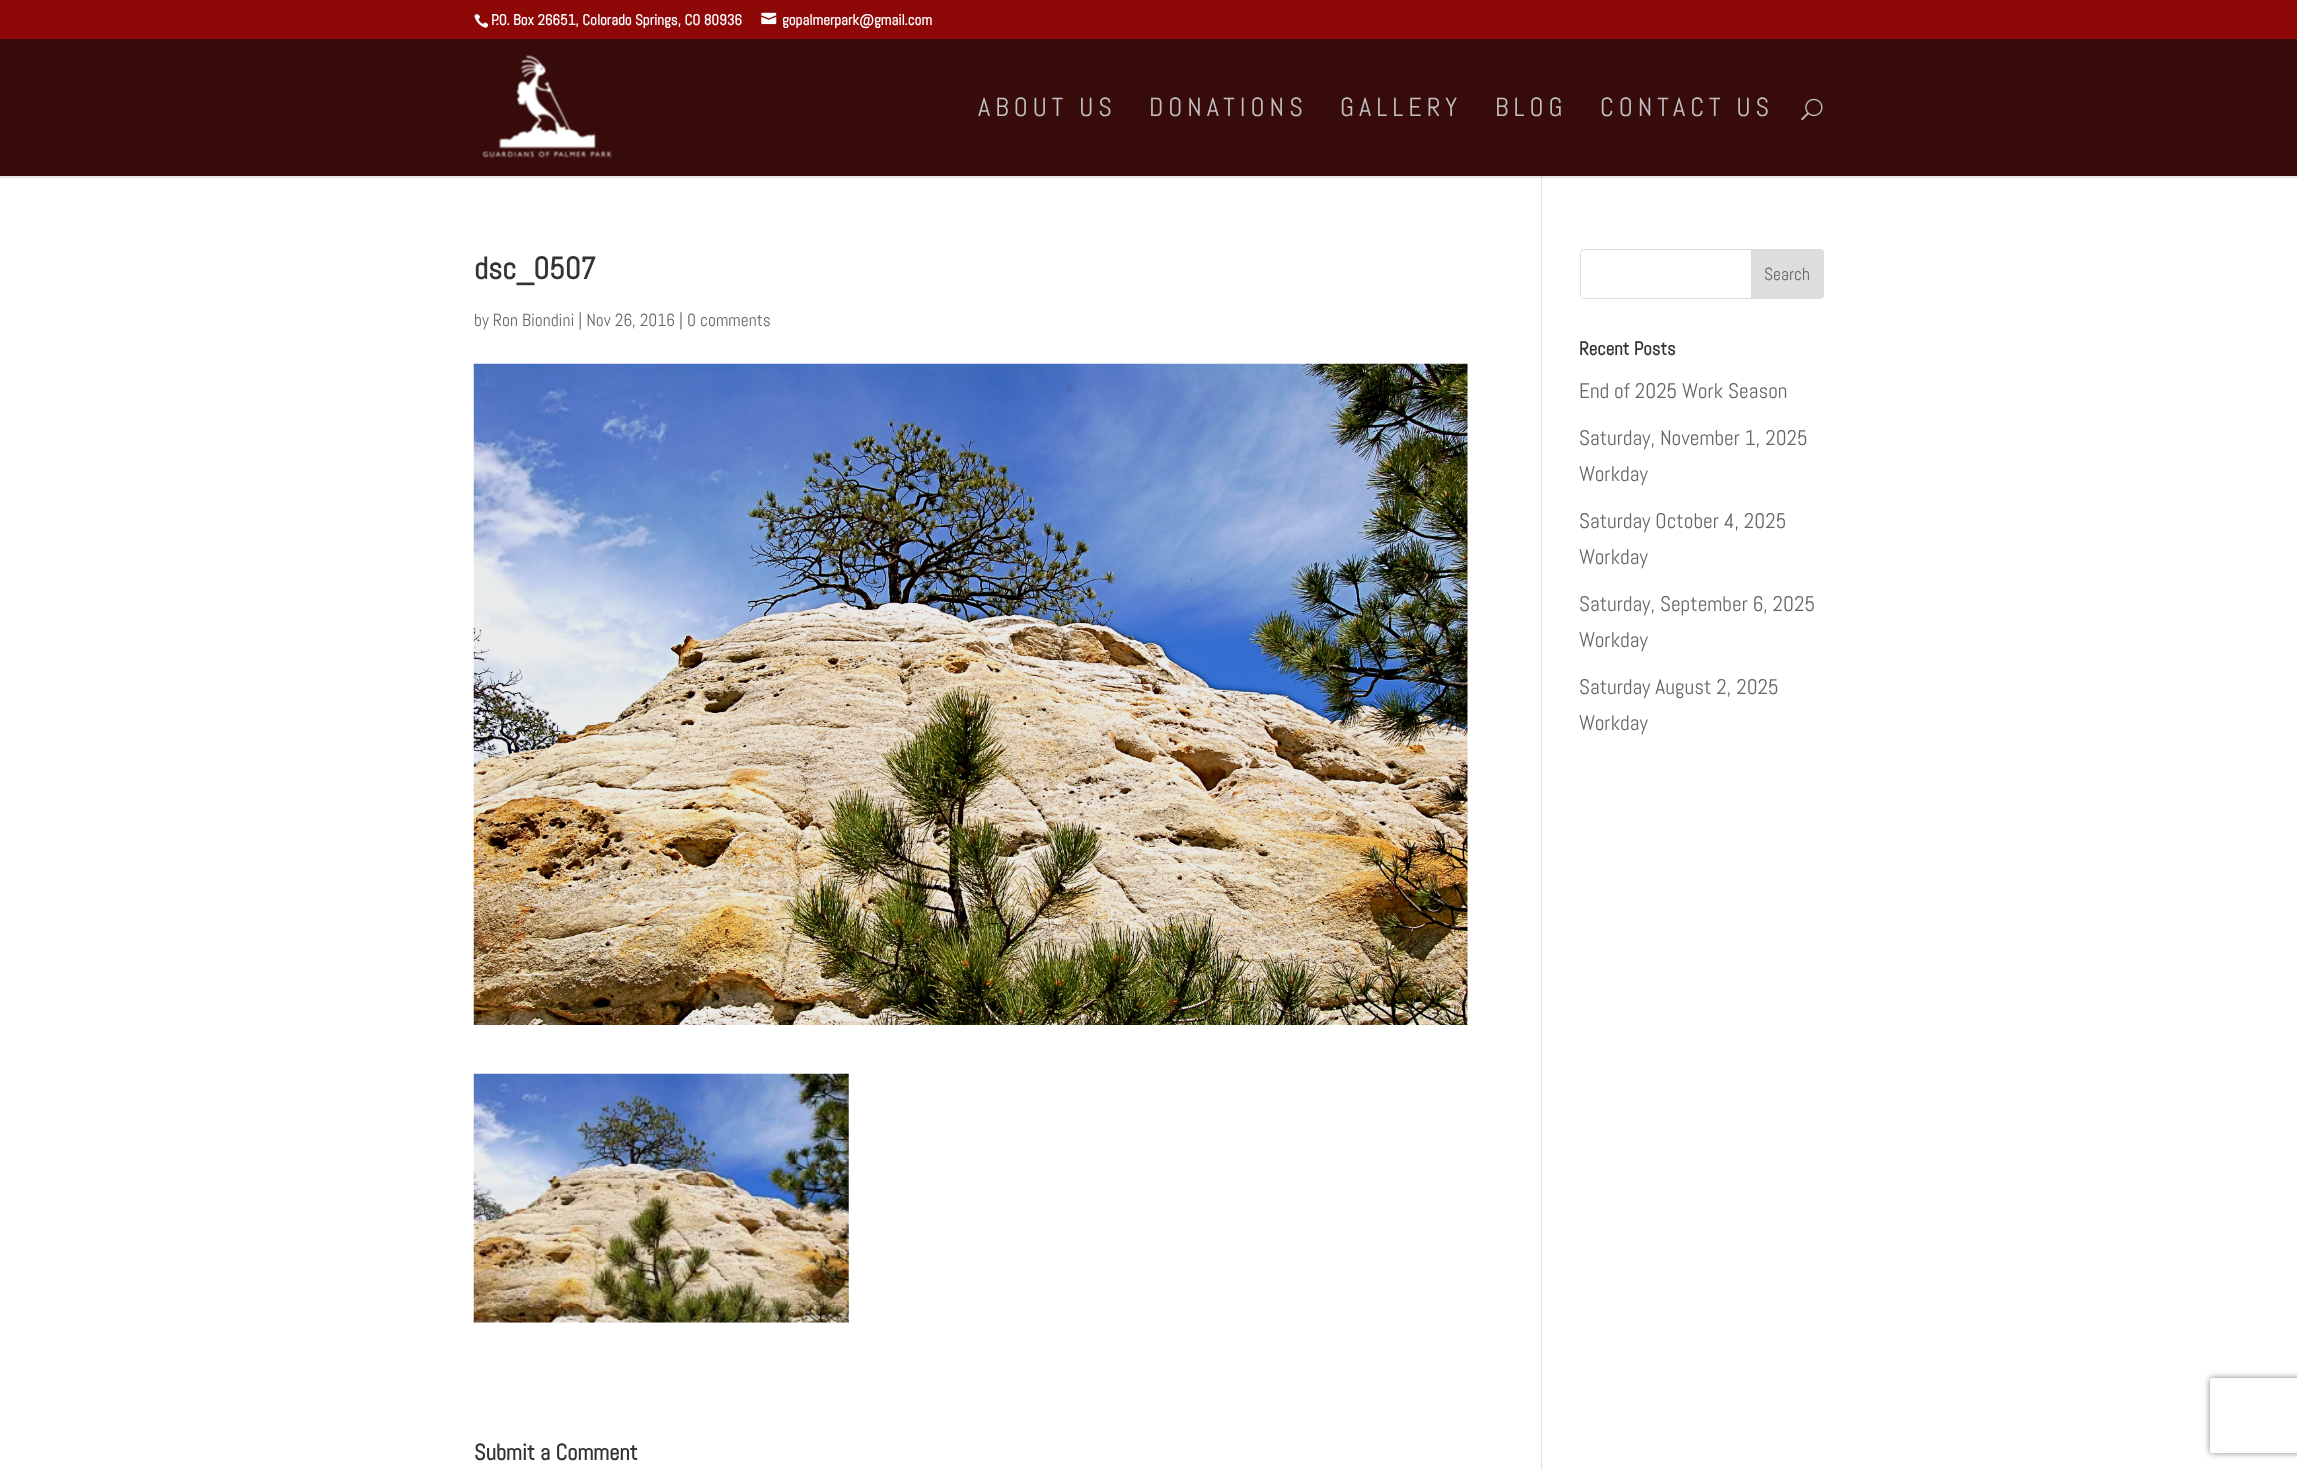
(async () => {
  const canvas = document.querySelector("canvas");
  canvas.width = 2297;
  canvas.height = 1470;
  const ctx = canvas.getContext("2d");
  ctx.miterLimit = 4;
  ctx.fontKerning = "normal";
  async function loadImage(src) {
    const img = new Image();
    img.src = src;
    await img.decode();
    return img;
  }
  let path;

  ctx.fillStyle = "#ffffff";
  ctx.fillRect(0, 0, 2297, 1470);
  ctx.fillStyle = "#8e0808";
  ctx.fillRect(0, 0, 2297, 39);
  ctx.drawImage(await loadImage("img/1.png"), 474, 14, 15, 14);
  ctx.drawImage(await loadImage("img/2.png"), 761, 12, 16, 13);
  ctx.fillStyle = "#e2e2e2";
  ctx.fillRect(1541, 176, 1, 1294);
  ctx.fillStyle = "rgba(0, 0, 0, 0.1)";
  path = new Path2D("M0 176V178H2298V40V176Z");
  ctx.fill(path);
  ctx.fillStyle = "#380b0b";
  ctx.fillRect(0, 39, 2297, 137);
  ctx.drawImage(await loadImage("img/3.png"), 482, 55, 130, 103);
  ctx.drawImage(await loadImage("img/4.png"), 1801, 98, 22, 23);
  ctx.drawImage(await loadImage("img/5.png"), 473, 363, 995, 662);
  ctx.drawImage(await loadImage("img/6.png"), 473, 1073, 376, 250);
  ctx.beginPath();
  ctx.roundRect(1580.5, 249.5, 243, 49, 3.5);
  ctx.strokeStyle = "#dddddd";
  ctx.stroke();
  ctx.fillStyle = "#dddddd";
  ctx.beginPath();
  ctx.roundRect(1751.5, 249.5, 72, 49, [0, 3.5, 3.5, 0]);
  ctx.fill();
  ctx.stroke();
  ctx.save();
  path = new Path2D("M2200 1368H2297V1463H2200ZM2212.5 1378H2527.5C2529 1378 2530 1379 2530 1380.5V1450.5C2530 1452 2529 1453 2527.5 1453H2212.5C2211 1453 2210 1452 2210 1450.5V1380.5C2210 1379 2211 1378 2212.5 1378Z");
  ctx.clip(path, "evenodd");
  ctx.fillStyle = "#808080";
  ctx.filter = "blur(3px)";
  ctx.beginPath();
  ctx.roundRect(2210, 1378, 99, 75, 2.5);
  ctx.fill();
  ctx.filter = "none";
  ctx.restore();
  ctx.font = "bold 15px Abel";
  ctx.fillStyle = "#ffffff";
  ctx.fillText("P.O. Box 26651, Colorado Springs, CO 80936", 491, 25);
  ctx.fillText("gopalmerpark@gmail.com", 782, 25);
  ctx.letterSpacing = "5px";
  ctx.font = "26.25px Abel";
  ctx.fillStyle = "#c1c1c1";
  for (const [text, x, y] of [
    ["ABOUT US", 978, 116],
    ["DONATIONS", 1149, 116],
    ["GALLERY", 1340, 116],
    ["BLOG", 1495, 116],
    ["CONTACT US", 1600, 116],
  ]) {
    ctx.fillText(text, x, y);
  }
  ctx.letterSpacing = "0px";
  ctx.font = "bold 31px Abel";
  ctx.fillStyle = "#333333";
  ctx.fillText("dsc_0507", 474, 279);
  ctx.font = "17.5px Abel";
  ctx.fillStyle = "#666666";
  ctx.fillText("by Ron Biondini | Nov 26, 2016 | 0 comments", 474, 326);
  ctx.font = "bold 22.5px Abel";
  ctx.fillStyle = "#333333";
  ctx.fillText("Submit a Comment", 474, 1460);
  ctx.font = "17.5px Abel";
  ctx.fillStyle = "#666666";
  ctx.fillText("Search", 1764, 280);
  ctx.font = "bold 18.75px Abel";
  ctx.fillStyle = "#333333";
  ctx.fillText("Recent Posts", 1579, 355);
  ctx.font = "21.25px Abel";
  ctx.fillStyle = "#666666";
  for (const [text, x, y] of [
    ["End of 2025 Work Season", 1579, 398],
    ["Saturday, November 1, 2025", 1579, 445],
    ["Workday", 1579, 481],
    ["Saturday October 4, 2025", 1579, 528],
    ["Workday", 1579, 564],
    ["Saturday, September 6, 2025", 1579, 611],
    ["Workday", 1579, 647],
    ["Saturday August 2, 2025", 1579, 694],
    ["Workday", 1579, 730],
  ]) {
    ctx.fillText(text, x, y);
  }
})();
